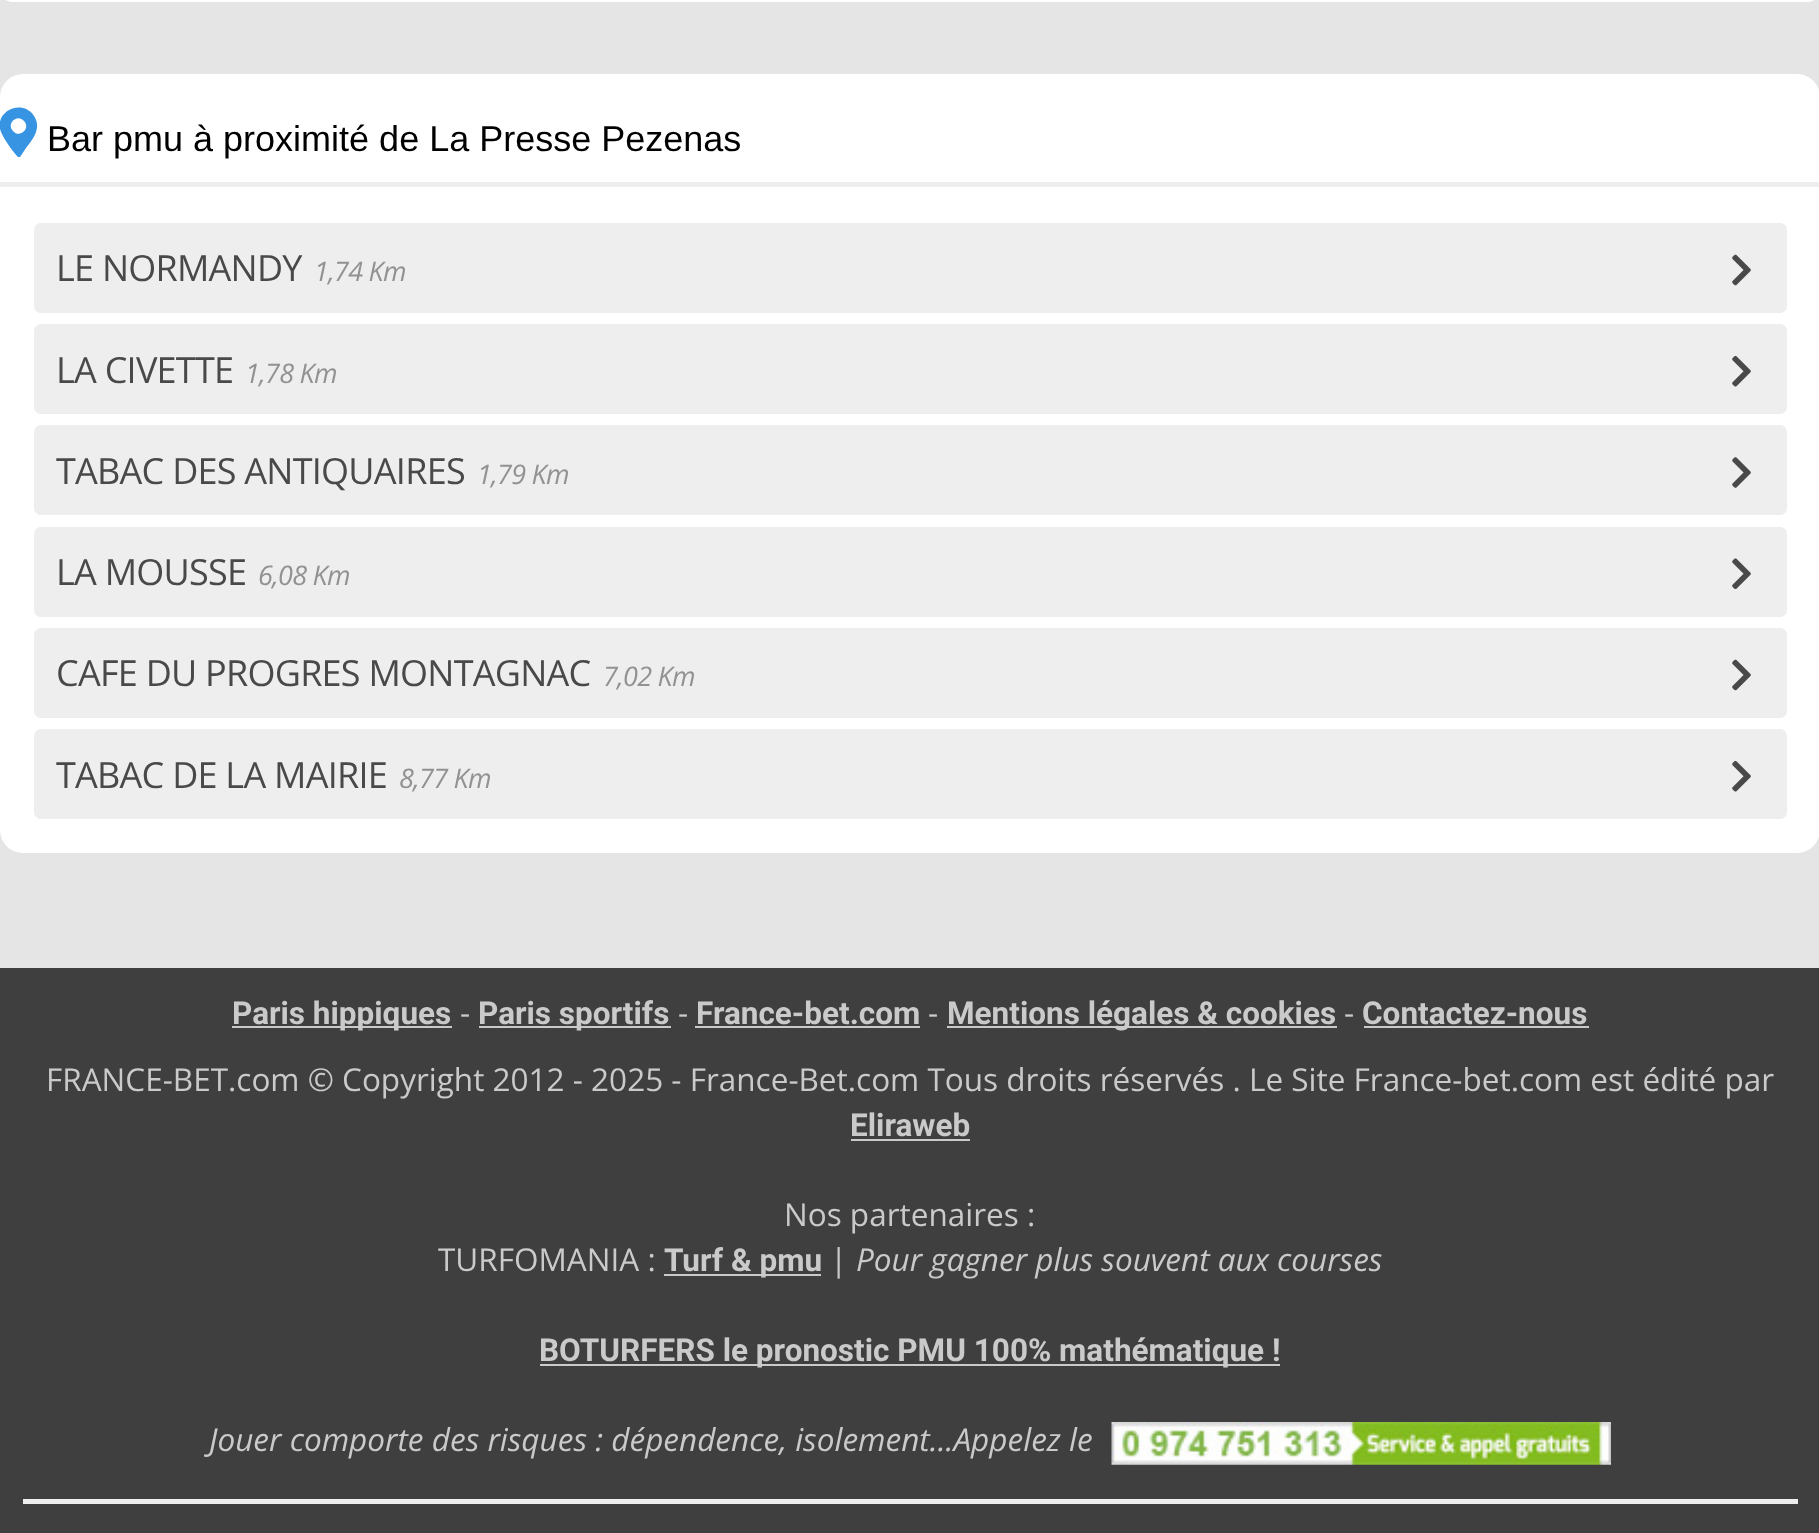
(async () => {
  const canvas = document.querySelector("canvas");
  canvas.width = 1819;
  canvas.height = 1533;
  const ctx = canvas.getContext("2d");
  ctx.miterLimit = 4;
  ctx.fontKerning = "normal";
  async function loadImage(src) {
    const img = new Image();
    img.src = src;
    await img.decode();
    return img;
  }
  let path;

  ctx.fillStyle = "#e5e5e5";
  ctx.fillRect(0, 0, 1819, 1533);
  ctx.fillStyle = "#ffffff";
  ctx.beginPath();
  ctx.roundRect(0, -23, 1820, 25, 23);
  ctx.fill();
  ctx.beginPath();
  ctx.roundRect(0, 74, 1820, 779, 23);
  ctx.fill();
  ctx.fillStyle = "#3794e2";
  path = new Path2D("M17 156C12 150 2 137 0 129C-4 110 23 99 34 116C42 128 33 139 26 148L20 157C19 157 17 157 17 156ZM13 131C20 139 31 128 24 121C17 113 6 124 13 131Z");
  ctx.fill(path);
  ctx.fillStyle = "#eeeeee";
  ctx.fillRect(0, 182, 1819, 5);
  ctx.beginPath();
  ctx.roundRect(34, 223, 1753, 90, 7);
  ctx.fill();
  ctx.drawImage(await loadImage("img/1.png"), 1732, 254, 19, 32);
  ctx.beginPath();
  ctx.roundRect(34, 324, 1753, 90, 7);
  ctx.fill();
  ctx.drawImage(await loadImage("img/2.png"), 1732, 355, 19, 32);
  ctx.beginPath();
  ctx.roundRect(34, 425, 1753, 90, 7);
  ctx.fill();
  ctx.drawImage(await loadImage("img/3.png"), 1732, 457, 19, 31);
  ctx.beginPath();
  ctx.roundRect(34, 527, 1753, 90, 7);
  ctx.fill();
  ctx.drawImage(await loadImage("img/4.png"), 1732, 558, 19, 32);
  ctx.beginPath();
  ctx.roundRect(34, 628, 1753, 90, 7);
  ctx.fill();
  ctx.drawImage(await loadImage("img/1.png"), 1732, 659, 19, 32);
  ctx.beginPath();
  ctx.roundRect(34, 729, 1753, 90, 7);
  ctx.fill();
  ctx.drawImage(await loadImage("img/2.png"), 1732, 760, 19, 32);
  for (const [x, y, w, h, color] of [
    [0, 968, 1819, 565, "#3f3f3f"],
    [232, 1026, 220, 2, "#cacaca"],
    [479, 1026, 192, 2, "#cacaca"],
    [695, 1026, 225, 2, "#cacaca"],
    [947, 1026, 390, 2, "#cacaca"],
    [1364, 1026, 225, 2, "#cacaca"],
    [851, 1139, 119, 2, "#cacaca"],
    [664, 1274, 157, 2, "#cacaca"],
    [540, 1364, 740, 2, "#cacaca"],
  ]) {
    ctx.fillStyle = color;
    ctx.fillRect(x, y, w, h);
  }
  ctx.drawImage(await loadImage("img/5.png"), 1111, 1422, 500, 43);
  ctx.fillStyle = "#eeeeee";
  ctx.fillRect(23, 1499, 1775, 5);
  ctx.font = "36px Liberation Sans";
  ctx.fillStyle = "#000000";
  ctx.fillText("Bar pmu à proximité de La Presse Pezenas", 47, 151);
  ctx.letterSpacing = "-0.75px";
  ctx.font = "36px Open Sans";
  ctx.fillStyle = "#494949";
  ctx.fillText("LE NORMANDY", 56, 281);
  ctx.font = "italic 27px Open Sans";
  ctx.fillStyle = "#929292";
  ctx.fillText("1,74 Km", 314, 281);
  ctx.font = "36px Open Sans";
  ctx.fillStyle = "#494949";
  ctx.fillText("LA CIVETTE", 56, 383);
  ctx.font = "italic 27px Open Sans";
  ctx.fillStyle = "#929292";
  ctx.fillText("1,78 Km", 245, 383);
  ctx.font = "36px Open Sans";
  ctx.fillStyle = "#494949";
  ctx.fillText("TABAC DES ANTIQUAIRES", 56, 484);
  ctx.font = "italic 27px Open Sans";
  ctx.fillStyle = "#929292";
  ctx.fillText("1,79 Km", 477, 484);
  ctx.font = "36px Open Sans";
  ctx.fillStyle = "#494949";
  ctx.fillText("LA MOUSSE", 56, 585);
  ctx.font = "italic 27px Open Sans";
  ctx.fillStyle = "#929292";
  ctx.fillText("6,08 Km", 258, 585);
  ctx.font = "36px Open Sans";
  ctx.fillStyle = "#494949";
  ctx.fillText("CAFE DU PROGRES MONTAGNAC", 56, 686);
  ctx.font = "italic 27px Open Sans";
  ctx.fillStyle = "#929292";
  ctx.fillText("7,02 Km", 603, 686);
  ctx.font = "36px Open Sans";
  ctx.fillStyle = "#494949";
  ctx.fillText("TABAC DE LA MAIRIE", 56, 788);
  ctx.font = "italic 27px Open Sans";
  ctx.fillStyle = "#929292";
  ctx.fillText("8,77 Km", 399, 788);
  ctx.letterSpacing = "0px";
  ctx.font = "bold 31.5px Roboto";
  ctx.fillStyle = "#cacaca";
  ctx.fillText("Paris hippiques", 232, 1024);
  ctx.font = "31.5px Open Sans";
  ctx.fillText("-", 460, 1024);
  ctx.font = "bold 31.5px Roboto";
  ctx.fillText("Paris sportifs", 478, 1024);
  ctx.font = "31.5px Open Sans";
  ctx.fillText("-", 678, 1024);
  ctx.font = "bold 31.5px Roboto";
  ctx.fillText("France-bet.com", 696, 1024);
  ctx.font = "31.5px Open Sans";
  ctx.fillText("-", 928, 1024);
  ctx.font = "bold 31.5px Roboto";
  ctx.fillText("Mentions légales & cookies", 947, 1024);
  ctx.font = "31.5px Open Sans";
  ctx.fillText("-", 1344, 1024);
  ctx.font = "bold 31.5px Roboto";
  ctx.fillText("Contactez-nous", 1362, 1024);
  ctx.font = "31.5px Open Sans";
  ctx.fillText("FRANCE-BET.com © Copyright 2012 - 2025 - France-Bet.com Tous droits réservés . Le Site France-bet.com est édité par", 46, 1091);
  ctx.font = "bold 31.5px Roboto";
  ctx.fillText("Eliraweb", 850, 1136);
  ctx.font = "31.5px Open Sans";
  ctx.fillText("Nos partenaires :", 784, 1226);
  ctx.fillText("TURFOMANIA :", 438, 1271);
  ctx.font = "bold 31.5px Roboto";
  ctx.fillText("Turf & pmu", 664, 1271);
  ctx.font = "31.5px Open Sans";
  ctx.fillText("|", 830, 1271);
  ctx.font = "italic 31.5px Open Sans";
  ctx.fillText("Pour gagner plus souvent aux courses", 856, 1271);
  ctx.font = "bold 31.5px Roboto";
  ctx.fillText("BOTURFERS le pronostic PMU 100% mathématique !", 539, 1361);
  ctx.font = "italic 31.5px Open Sans";
  ctx.fillText("Jouer comporte des risques : dépendence, isolement...Appelez le", 209, 1451);
})();
